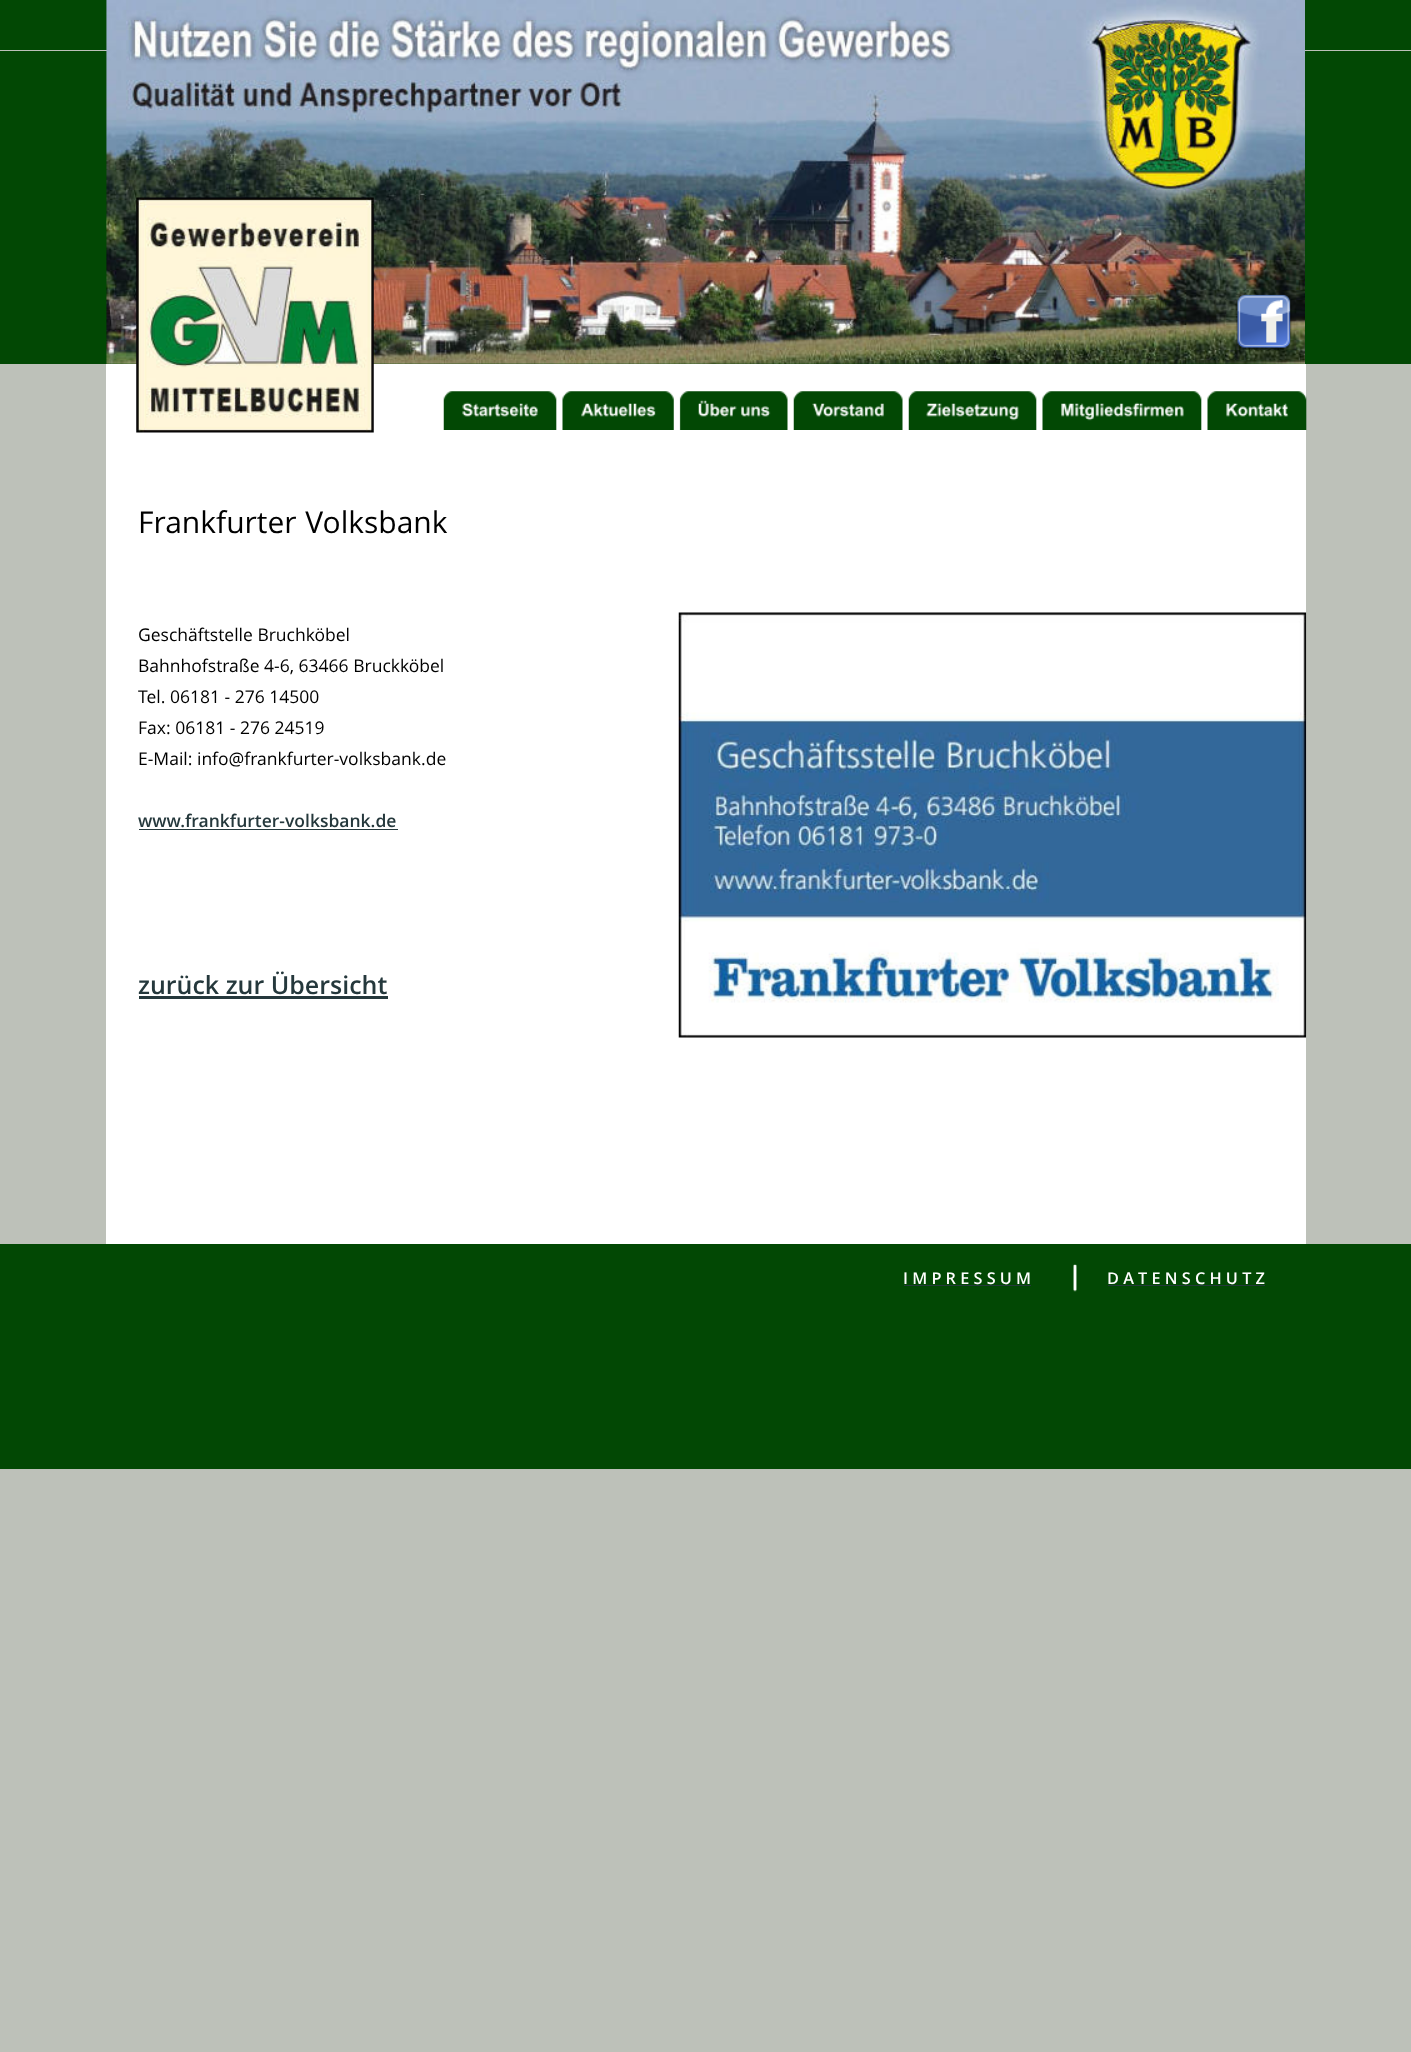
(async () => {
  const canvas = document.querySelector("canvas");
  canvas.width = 1411;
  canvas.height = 2052;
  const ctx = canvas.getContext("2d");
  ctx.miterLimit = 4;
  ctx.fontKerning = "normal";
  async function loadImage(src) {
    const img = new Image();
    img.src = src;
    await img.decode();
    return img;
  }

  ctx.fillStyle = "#bdc1b9";
  ctx.fillRect(0, 0, 1411, 2052);
  for (const [x, y, w, h, color] of [
    [0, 0, 1411, 50, "#024804"],
    [0, 51, 1411, 313, "#024804"],
    [0, 1244, 1411, 225, "#024804"],
    [106, 364, 1200, 880, "#ffffff"],
  ]) {
    ctx.fillStyle = color;
    ctx.fillRect(x, y, w, h);
  }
  ctx.drawImage(await loadImage("img/1.png"), 443, 391, 114, 39);
  ctx.drawImage(await loadImage("img/2.png"), 562, 391, 112, 39);
  ctx.drawImage(await loadImage("img/3.png"), 679, 391, 109, 39);
  ctx.drawImage(await loadImage("img/4.png"), 793, 391, 110, 39);
  ctx.drawImage(await loadImage("img/5.png"), 908, 391, 129, 39);
  ctx.drawImage(await loadImage("img/6.png"), 1042, 391, 160, 39);
  ctx.drawImage(await loadImage("img/7.png"), 1207, 391, 100, 39);
  ctx.drawImage(await loadImage("img/8.png"), 106, 0, 1199, 364);
  ctx.drawImage(await loadImage("img/9.png"), 136, 197, 238, 236);
  ctx.drawImage(await loadImage("img/10.png"), 1236, 294, 56, 56);
  ctx.fillStyle = "#25383c";
  ctx.fillRect(139, 829, 259, 1);
  ctx.fillRect(139, 996, 249, 3);
  ctx.drawImage(await loadImage("img/11.png"), 678, 612, 629, 426);
  ctx.drawImage(await loadImage("img/13.png"), 1073, 1264, 4, 28);
  ctx.drawImage(await loadImage("img/12.png"), 1073, 1264, 4, 28);
  ctx.fillRect(904, 1285, 127, 1);
  ctx.fillRect(1108, 1285, 157, 1);
  ctx.wordSpacing = "1px";
  ctx.font = "30px Open Sans";
  ctx.fillStyle = "#000000";
  ctx.fillText("Frankfurter Volksbank", 138, 533);
  ctx.wordSpacing = "0px";
  ctx.font = "17.5px Open Sans";
  for (const [text, x, y] of [
    ["Geschäftstelle Bruchköbel", 138, 641],
    ["Bahnhofstraße 4-6, 63466 Bruckköbel", 138, 672],
    ["Tel. 06181 - 276 14500", 138, 703],
    ["Fax: 06181 - 276 24519", 138, 734],
    ["E-Mail: info@frankfurter-volksbank.de", 138, 765],
  ]) {
    ctx.fillText(text, x, y);
  }
  ctx.font = "600 17.5px Open Sans";
  ctx.fillStyle = "#25383c";
  ctx.fillText("www.frankfurter-volksbank.de", 138, 827);
  ctx.font = "600 25px Open Sans";
  ctx.fillText("zurück zur Übersicht", 138, 994);
  ctx.font = "600 16.25px Open Sans";
  ctx.fillStyle = "#ffffff";
  ctx.fillText("I M P R E S S U M", 903, 1284);
  ctx.fillText("D A T E N S C H U T Z", 1107, 1284);
})();
